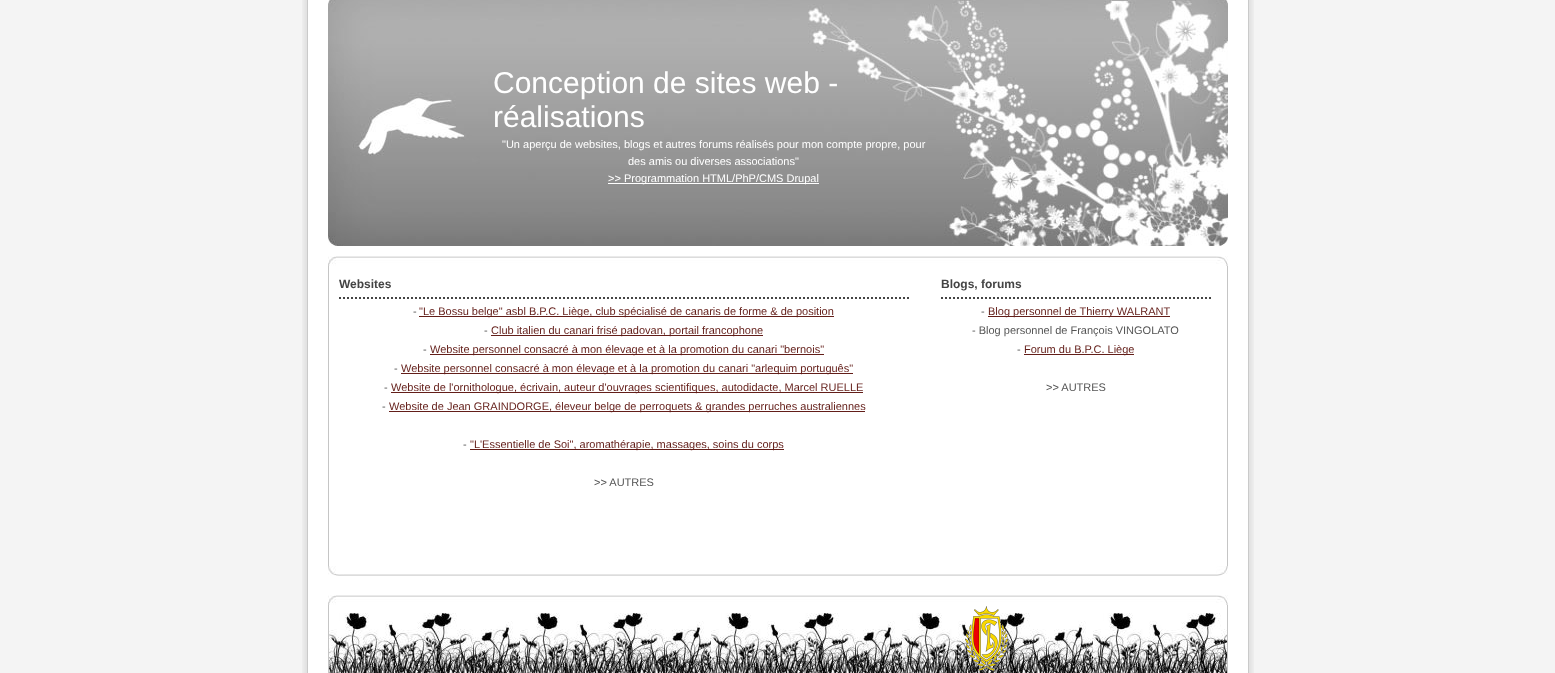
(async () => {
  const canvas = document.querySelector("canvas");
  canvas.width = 1555;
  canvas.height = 673;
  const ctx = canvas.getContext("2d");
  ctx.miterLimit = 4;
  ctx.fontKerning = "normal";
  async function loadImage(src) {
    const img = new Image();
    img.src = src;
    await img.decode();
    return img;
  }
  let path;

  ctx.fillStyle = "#f4f4f4";
  ctx.fillRect(0, 0, 1555, 673);
  ctx.drawImage(await loadImage("img/1.png"), 302, 0, 952, 673);
  ctx.drawImage(await loadImage("img/2.png"), 328, 0, 900, 246);
  ctx.fillStyle = "#ffffff";
  ctx.fillRect(608, 183, 211, 1);
  ctx.drawImage(await loadImage("img/3.png"), 328, 256, 900, 10);
  ctx.fillStyle = "#c5c5c5";
  ctx.fillRect(1227, 266, 1, 300);
  ctx.fillRect(328, 266, 1, 300);
  path = new Path2D("M339 298H909");
  ctx.strokeStyle = "#444444";
  ctx.lineWidth = 2;
  ctx.setLineDash([2, 2]);
  ctx.stroke(path);
  for (const [x, y, w, h, color] of [
    [419, 316, 415, 1, "#631e19"],
    [491, 335, 272, 1, "#631e19"],
    [430, 354, 394, 1, "#631e19"],
    [401, 373, 452, 1, "#631e19"],
    [391, 392, 472, 1, "#631e19"],
    [389, 411, 476, 1, "#631e19"],
    [470, 449, 314, 1, "#631e19"],
  ]) {
    ctx.fillStyle = color;
    ctx.fillRect(x, y, w, h);
  }
  path = new Path2D("M941 298H1211");
  ctx.stroke(path);
  ctx.fillRect(988, 316, 182, 1);
  ctx.fillRect(1024, 354, 110, 1);
  ctx.drawImage(await loadImage("img/4.png"), 328, 566, 900, 10);
  ctx.drawImage(await loadImage("img/3.png"), 328, 595, 900, 10);
  ctx.drawImage(await loadImage("img/5.png"), 329, 613, 898, 60);
  ctx.fillStyle = "#c5c5c5";
  ctx.fillRect(1227, 605, 1, 68);
  ctx.fillRect(328, 605, 1, 68);
  ctx.drawImage(await loadImage("img/6.png"), 965, 606, 43, 65);
  ctx.font = "30px Liberation Sans";
  ctx.fillStyle = "#ffffff";
  ctx.fillText("Conception de sites web -", 493, 93);
  ctx.fillText("réalisations", 493, 127);
  ctx.font = "11px Liberation Sans";
  for (const [text, x, y] of [
    ["\"Un aperçu de websites, blogs et autres forums réalisés pour mon compte propre, pour", 502, 148],
    ["des amis ou diverses associations\"", 628, 165],
    [">> Programmation HTML/PhP/CMS Drupal", 608, 182],
  ]) {
    ctx.fillText(text, x, y);
  }
  ctx.font = "bold 12px Liberation Sans";
  ctx.fillStyle = "#444444";
  ctx.fillText("Websites", 339, 288);
  ctx.font = "11px Liberation Sans";
  ctx.fillStyle = "#555555";
  ctx.fillText("-", 413, 315);
  ctx.fillStyle = "#631e19";
  ctx.fillText("\"Le Bossu belge\" asbl B.P.C. Liège, club spécialisé de canaris de forme & de position", 419, 315);
  ctx.fillStyle = "#555555";
  ctx.fillText("-", 484, 334);
  ctx.fillStyle = "#631e19";
  ctx.fillText("Club italien du canari frisé padovan, portail francophone", 491, 334);
  ctx.fillStyle = "#555555";
  ctx.fillText("-", 423, 353);
  ctx.fillStyle = "#631e19";
  ctx.fillText("Website personnel consacré à mon élevage et à la promotion du canari \"bernois\"", 430, 353);
  ctx.fillStyle = "#555555";
  ctx.fillText("-", 394, 372);
  ctx.fillStyle = "#631e19";
  ctx.fillText("Website personnel consacré à mon élevage et à la promotion du canari \"arlequim português\"", 401, 372);
  ctx.fillStyle = "#555555";
  ctx.fillText("-", 384, 391);
  ctx.fillStyle = "#631e19";
  ctx.fillText("Website de l'ornithologue, écrivain, auteur d'ouvrages scientifiques, autodidacte, Marcel RUELLE", 391, 391);
  ctx.fillStyle = "#555555";
  ctx.fillText("-", 382, 410);
  ctx.fillStyle = "#631e19";
  ctx.fillText("Website de Jean GRAINDORGE, éleveur belge de perroquets & grandes perruches australiennes", 389, 410);
  ctx.fillStyle = "#555555";
  ctx.fillText("-", 463, 448);
  ctx.fillStyle = "#631e19";
  ctx.fillText("\"L'Essentielle de Soi\", aromathérapie, massages, soins du corps", 470, 448);
  ctx.fillStyle = "#555555";
  ctx.fillText(">> AUTRES", 594, 486);
  ctx.font = "bold 12px Liberation Sans";
  ctx.fillStyle = "#444444";
  ctx.fillText("Blogs, forums", 941, 288);
  ctx.font = "11px Liberation Sans";
  ctx.fillStyle = "#555555";
  ctx.fillText("-", 981, 315);
  ctx.fillStyle = "#631e19";
  ctx.fillText("Blog personnel de Thierry WALRANT", 988, 315);
  ctx.fillStyle = "#555555";
  ctx.fillText("- Blog personnel de François VINGOLATO", 972, 334);
  ctx.fillText("-", 1017, 353);
  ctx.fillStyle = "#631e19";
  ctx.fillText("Forum du B.P.C. Liège", 1024, 353);
  ctx.fillStyle = "#555555";
  ctx.fillText(">> AUTRES", 1046, 391);
})();
